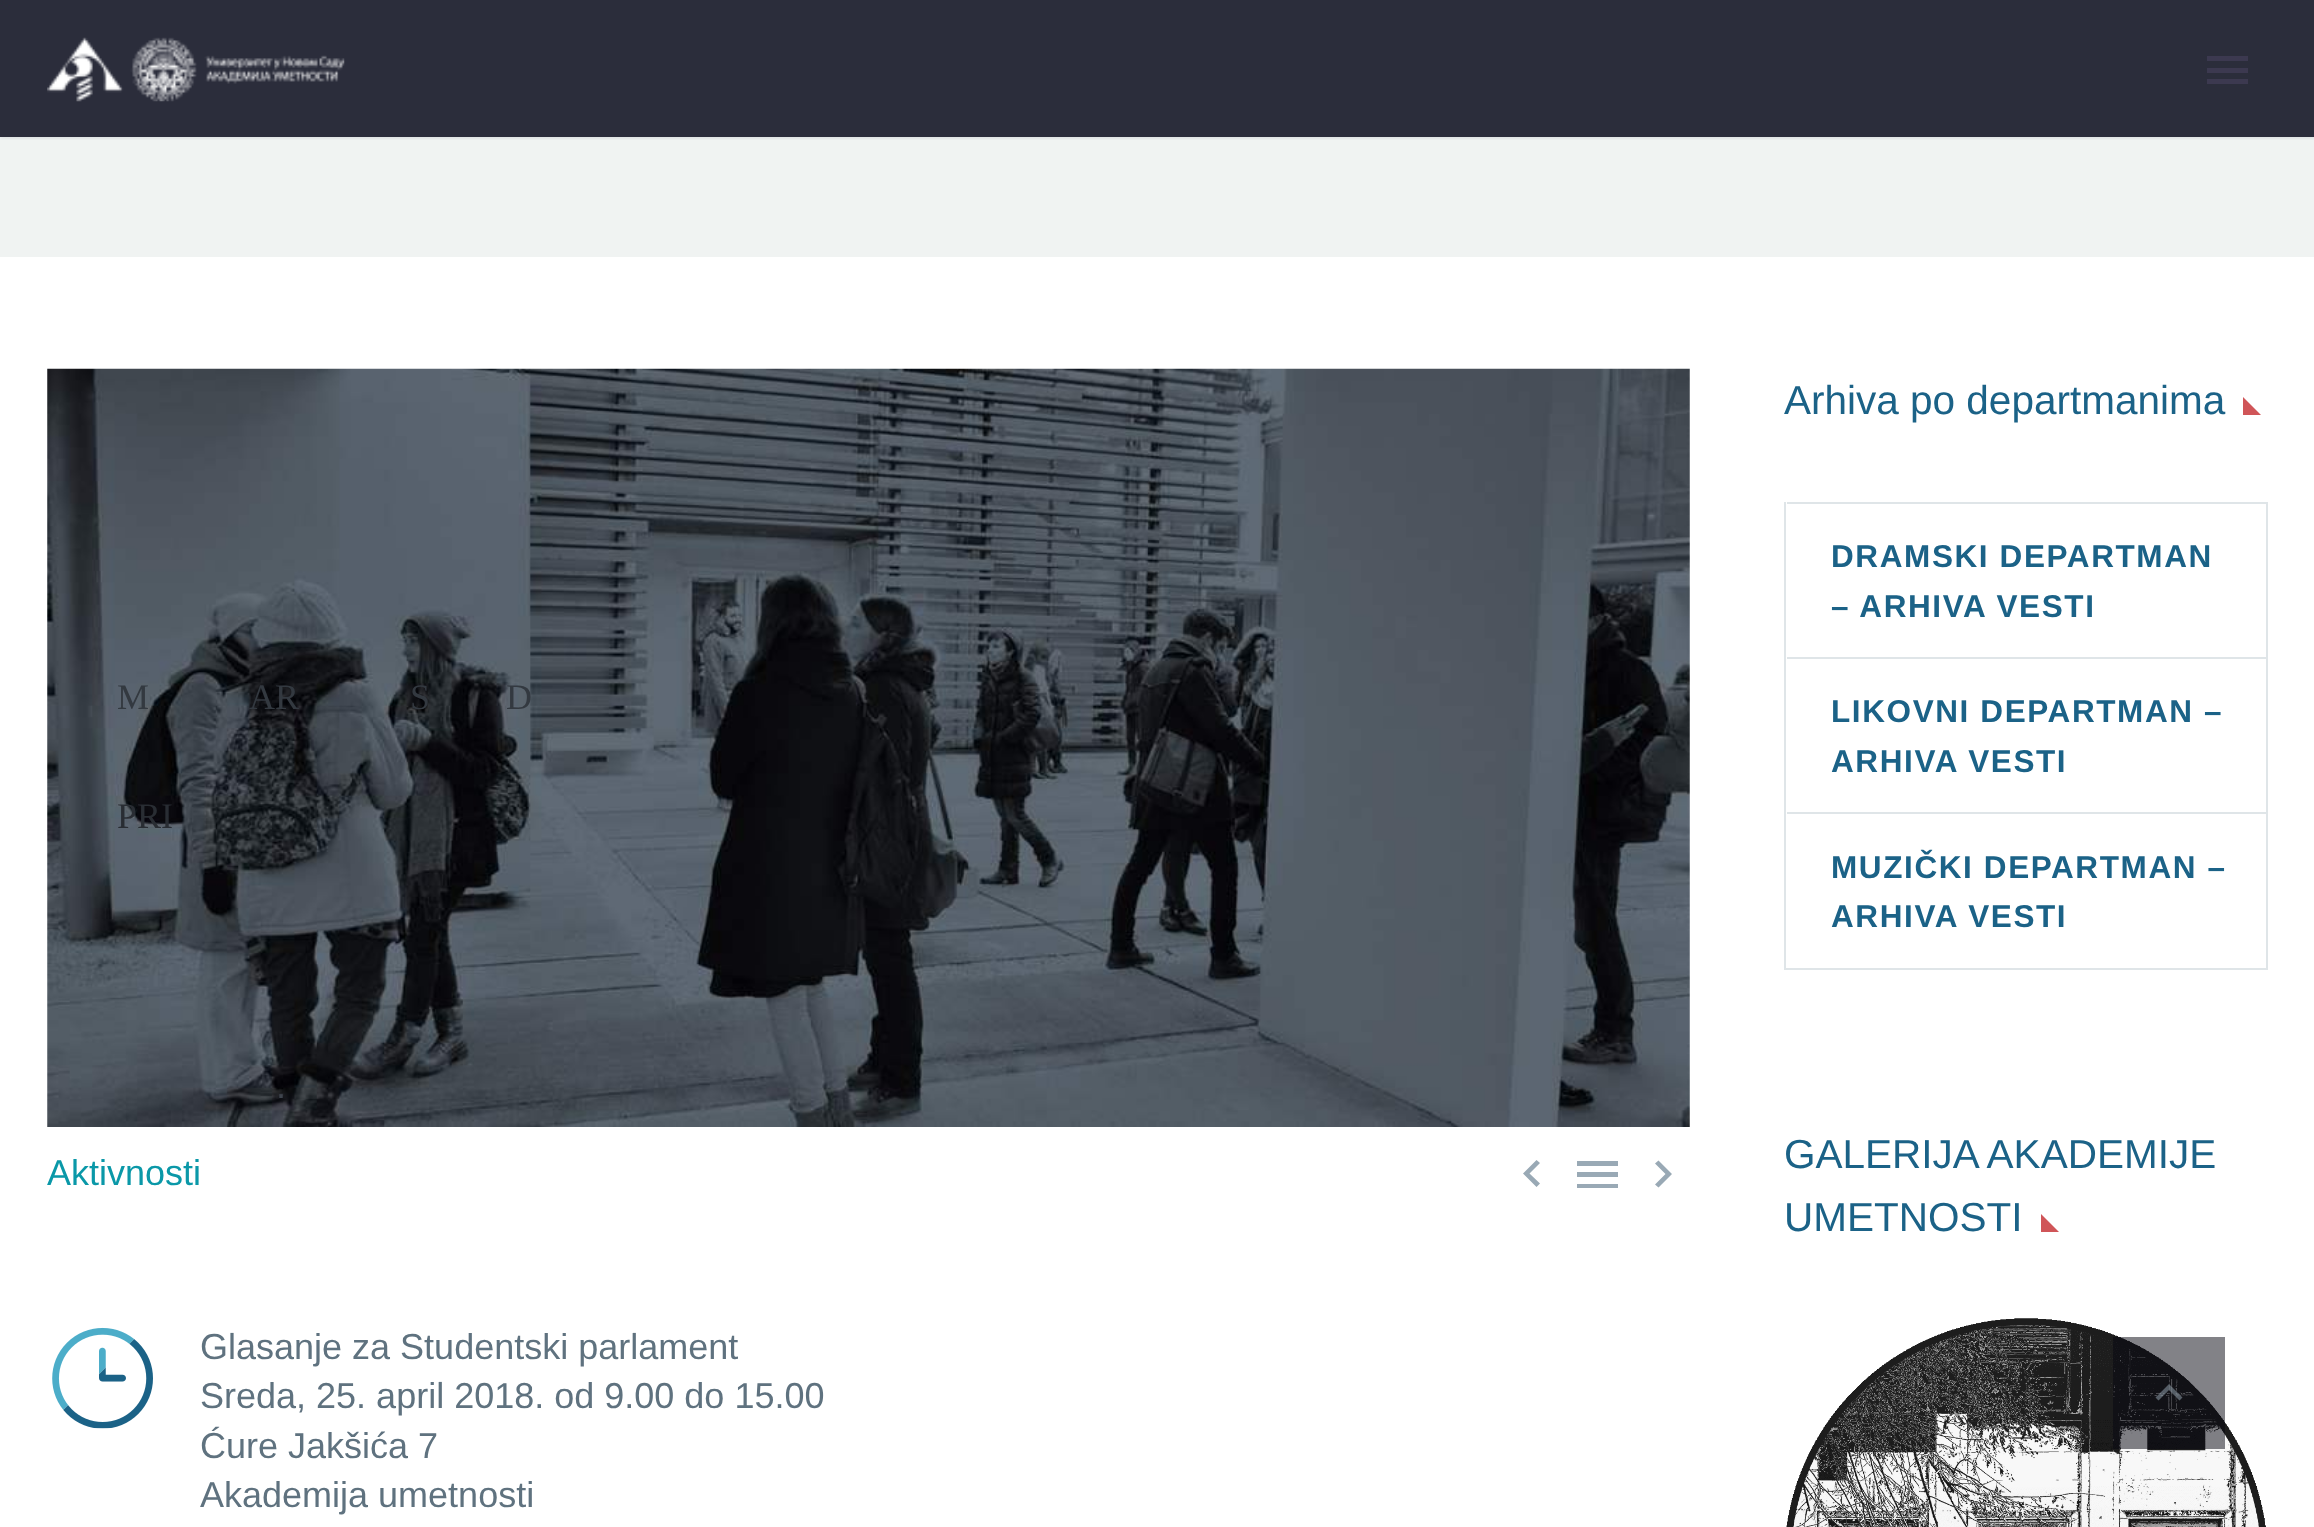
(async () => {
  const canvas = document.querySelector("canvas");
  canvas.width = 2314;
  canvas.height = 1527;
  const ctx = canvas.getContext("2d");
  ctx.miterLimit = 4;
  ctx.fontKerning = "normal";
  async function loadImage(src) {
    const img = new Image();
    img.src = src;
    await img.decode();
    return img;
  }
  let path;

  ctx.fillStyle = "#ffffff";
  ctx.fillRect(0, 0, 2314, 1527);
  ctx.fillStyle = "#f0f3f2";
  ctx.fillRect(0, 137, 2314, 120);
  ctx.fillStyle = "#2b2d3b";
  ctx.fillRect(0, 0, 2314, 137);
  ctx.fillStyle = "#d05558";
  path = new Path2D("M2243 397V415H2261Z");
  ctx.fill(path);
  for (const [x, y, w, h, color] of [
    [2266, 502, 2, 468, "#dfe5e8"],
    [1784, 968, 484, 2, "#dfe5e8"],
    [1784, 502, 2, 468, "#dfe5e8"],
    [1787, 502, 479, 2, "#dfe5e8"],
    [1787, 657, 479, 2, "#dfe5e8"],
    [1787, 812, 479, 2, "#dfe5e8"],
  ]) {
    ctx.fillStyle = color;
    ctx.fillRect(x, y, w, h);
  }
  ctx.fillStyle = "#d05558";
  path = new Path2D("M2041 1214V1232H2059Z");
  ctx.fill(path);
  ctx.drawImage(await loadImage("img/1.png"), 1786, 1318, 480, 209);
  ctx.drawImage(await loadImage("img/2.png"), 47, 368, 1643, 759);
  ctx.fillStyle = "#99a9b5";
  path = new Path2D("M1540 1183.5L1529.5 1173.5L1540 1163L1536.5 1160L1523 1173.5L1536.5 1187Z");
  ctx.fill(path);
  path = new Path2D("M1577 1188H1618V1184H1577ZM1577 1177H1618V1172H1577ZM1577 1161V1166H1618V1161Z");
  ctx.fill(path);
  path = new Path2D("M1655 1184.5L1665.5 1174L1655 1163.5L1658.5 1160.5L1672 1174L1658.5 1187.5Z");
  ctx.fill(path);
  ctx.drawImage(await loadImage("img/3.png"), 52, 1327, 83, 83);
  ctx.drawImage(await loadImage("img/4.png"), 63, 1339, 90, 90);
  ctx.save();
  ctx.beginPath();
  ctx.rect(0, 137, 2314, 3);
  ctx.clip();
  ctx.fillStyle = "rgba(56, 69, 84, 0.2)";
  ctx.filter = "blur(2px)";
  ctx.beginPath();
  ctx.rect(0, 0, 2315, 137);
  ctx.fill();
  ctx.filter = "none";
  ctx.restore();
  ctx.drawImage(await loadImage("img/5.png"), 47, 37, 298, 65);
  for (const [x, y, w, h, color] of [
    [2207, 56, 41, 5, "#3c3950"],
    [2207, 68, 41, 5, "#3c3950"],
    [2207, 79, 41, 5, "#3c3950"],
    [2113, 1337, 112, 112, "rgba(6, 6, 15, 0.5)"],
  ]) {
    ctx.fillStyle = color;
    ctx.fillRect(x, y, w, h);
  }
  ctx.fillStyle = "rgba(153, 169, 181, 0.5)";
  path = new Path2D("M2158.5 1400.5L2169 1390L2179.5 1400.5L2182.5 1397.5L2169 1384L2155.5 1397.5Z");
  ctx.fill(path);
  ctx.font = "40.5px Liberation Sans";
  ctx.fillStyle = "#1b6287";
  ctx.fillText("Arhiva po departmanima", 1784, 414);
  ctx.letterSpacing = "1.6px";
  ctx.font = "bold 31.5px Liberation Sans";
  for (const [text, x, y] of [
    ["DRAMSKI DEPARTMAN", 1831, 567],
    ["– ARHIVA VESTI", 1831, 617],
    ["LIKOVNI DEPARTMAN –", 1831, 722],
    ["ARHIVA VESTI", 1831, 772],
    ["MUZIČKI DEPARTMAN –", 1831, 878],
    ["ARHIVA VESTI", 1831, 927],
  ]) {
    ctx.fillText(text, x, y);
  }
  ctx.letterSpacing = "0px";
  ctx.font = "40.5px Liberation Sans";
  ctx.fillText("GALERIJA AKADEMIJE", 1784, 1168);
  ctx.fillText("UMETNOSTI", 1784, 1231);
  ctx.font = "36px Liberation Sans";
  ctx.fillStyle = "#0a98a8";
  ctx.fillText("Aktivnosti", 47, 1185);
  ctx.fillStyle = "#5f727f";
  for (const [text, x, y] of [
    ["Glasanje za Studentski parlament", 200, 1359],
    ["Sreda, 25. april 2018. od 9.00 do 15.00", 200, 1408],
    ["Ćure Jakšića 7", 200, 1458],
    ["Akademija umetnosti", 200, 1507],
  ]) {
    ctx.fillText(text, x, y);
  }
  ctx.font = "36px Liberation Serif";
  ctx.fillStyle = "#333940";
  for (const [text, x, y] of [
    ["M", 117, 709],
    ["AR", 249, 709],
    ["S", 410, 709],
    ["D", 506, 709],
  ]) {
    ctx.fillText(text, x, y);
  }
  ctx.fillStyle = "#292d33";
  ctx.fillText("PRI", 117, 828);
  ctx.font = "36px Liberation Sans";
  ctx.fillStyle = "#3e444d";
  ctx.fillText(".", 276, 1098);
})();
